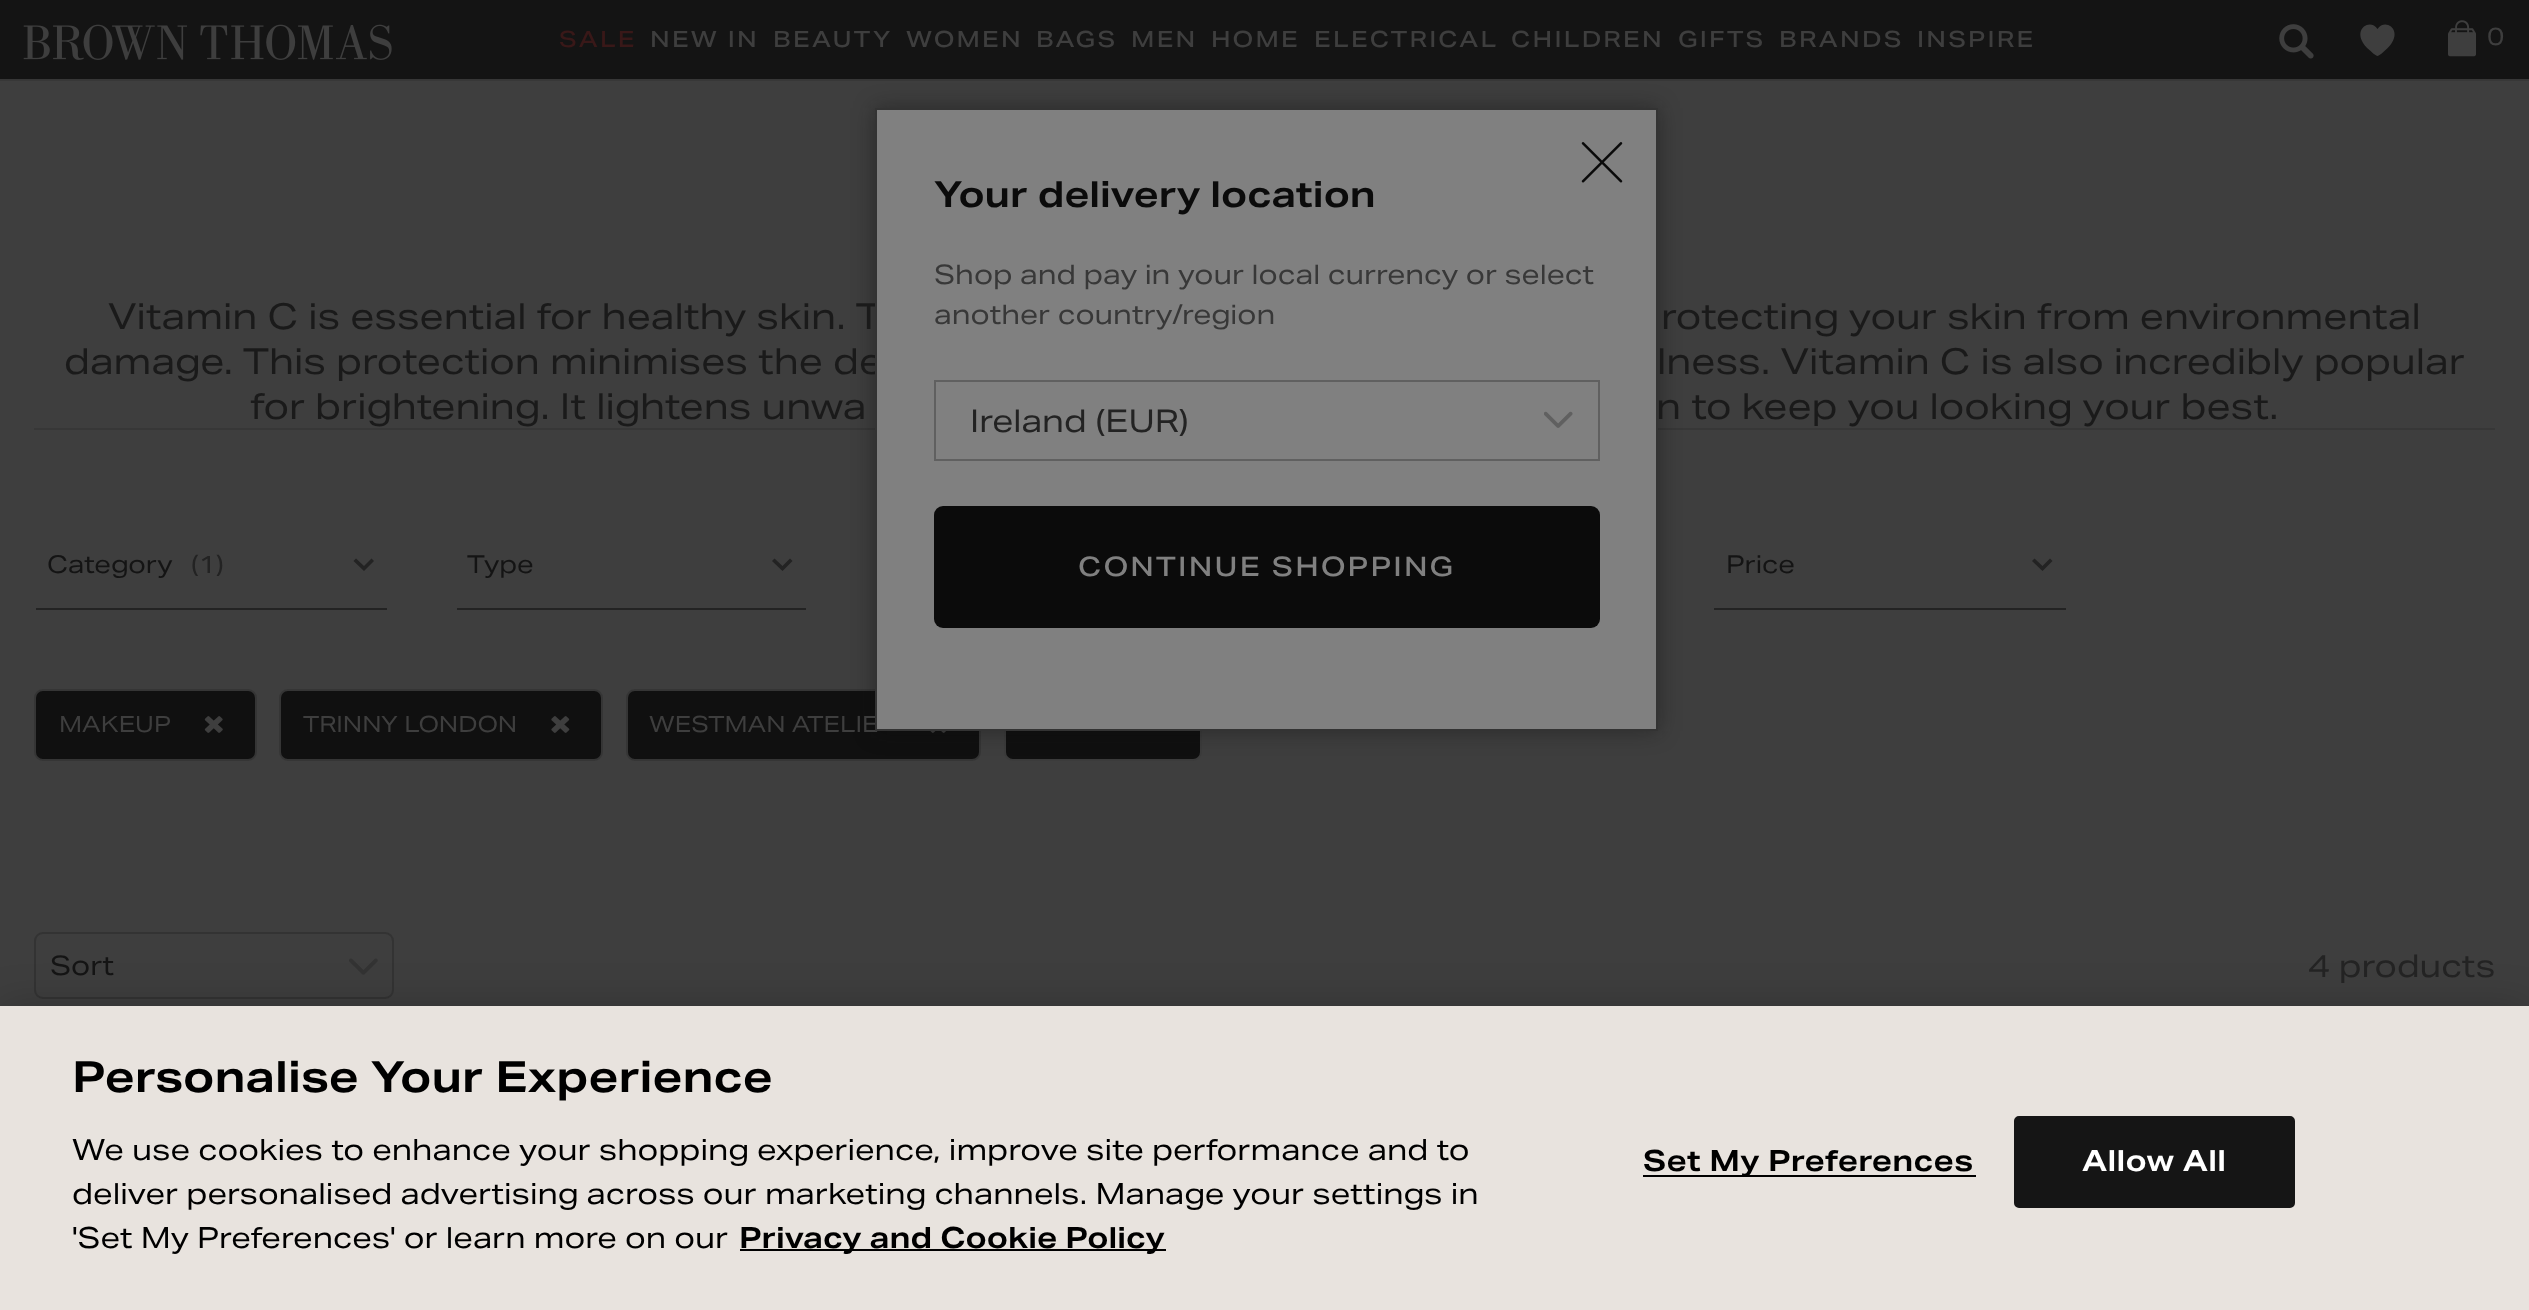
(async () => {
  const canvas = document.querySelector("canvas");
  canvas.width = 2529;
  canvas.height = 1310;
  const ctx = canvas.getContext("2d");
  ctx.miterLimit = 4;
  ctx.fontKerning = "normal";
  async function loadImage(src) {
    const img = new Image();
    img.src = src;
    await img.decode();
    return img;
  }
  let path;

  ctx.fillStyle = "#3e3e3e";
  ctx.fillRect(0, 0, 2529, 1310);
  ctx.fillStyle = "#141414";
  ctx.fillRect(0, 0, 2529, 79);
  ctx.fillStyle = "#373737";
  ctx.fillRect(0, 79, 2529, 2);
  ctx.drawImage(await loadImage("img/1.png"), 23, 24, 369, 36);
  ctx.drawImage(await loadImage("img/2.png"), 2279, 24, 35, 35);
  ctx.fillStyle = "#3e3e3e";
  path = new Path2D("M2377.5 56C2376 56 2371 51.5 2370 50.5C2348 32 2369.5 16.5 2377.5 29C2385.5 16.5 2407 32 2385 50.5C2384 51.5 2379 56 2377.5 56Z");
  ctx.fill(path);
  ctx.drawImage(await loadImage("img/3.png"), 2448, 20, 29, 37);
  for (const [x, y, w, h, color] of [
    [34, 428, 2461, 2, "#373737"],
    [34, 608, 353, 2, "#232323"],
    [34, 608, 2, 2, "#3e3e3e"],
  ]) {
    ctx.fillStyle = color;
    ctx.fillRect(x, y, w, h);
  }
  ctx.fillStyle = "#232323";
  path = new Path2D("M371.5 558.5L374 561L364 571L353.5 561L356 558.5L364 566Z");
  ctx.fill(path);
  ctx.fillRect(455, 608, 351, 2);
  ctx.fillStyle = "#3e3e3e";
  ctx.fillRect(455, 608, 2, 2);
  ctx.fillStyle = "#232323";
  path = new Path2D("M790 558.5L792.5 561L782.5 571L772 561L774.5 558.5L782.5 566Z");
  ctx.fill(path);
  ctx.fillRect(1712, 608, 354, 2);
  ctx.fillStyle = "#3e3e3e";
  ctx.fillRect(1712, 608, 2, 2);
  ctx.fillStyle = "#232323";
  path = new Path2D("M2050 558.5L2052.5 561L2042.5 571L2032 561L2034.5 558.5L2042.5 566Z");
  ctx.fill(path);
  ctx.fillStyle = "#101010";
  ctx.beginPath();
  ctx.roundRect(35, 690, 221, 70, 8);
  ctx.fill();
  ctx.strokeStyle = "#353535";
  ctx.lineWidth = 2;
  ctx.stroke();
  ctx.drawImage(await loadImage("img/4.png"), 204, 716, 19, 17);
  ctx.beginPath();
  ctx.roundRect(280, 690, 322, 70, 8);
  ctx.fill();
  ctx.stroke();
  ctx.drawImage(await loadImage("img/5.png"), 551, 716, 19, 17);
  ctx.beginPath();
  ctx.roundRect(627, 690, 353, 70, 8);
  ctx.fill();
  ctx.stroke();
  ctx.drawImage(await loadImage("img/6.png"), 930, 731, 16, 2);
  ctx.beginPath();
  ctx.roundRect(1005, 690, 196, 70, 8);
  ctx.fill();
  ctx.strokeStyle = "#3b3b3b";
  ctx.stroke();
  ctx.drawImage(await loadImage("img/7.png"), 349, 958, 29, 17);
  ctx.beginPath();
  ctx.roundRect(35, 933, 358, 65, 8);
  ctx.strokeStyle = "#333333";
  ctx.stroke();
  ctx.fillStyle = "rgba(11, 11, 11, 0.4)";
  ctx.filter = "blur(11px)";
  ctx.beginPath();
  ctx.rect(875, 108, 783, 623);
  ctx.fill();
  ctx.filter = "none";
  ctx.fillStyle = "rgba(0, 0, 0, 0.2)";
  ctx.filter = "blur(20px)";
  ctx.beginPath();
  ctx.rect(0, 1006, 2529, 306);
  ctx.fill();
  ctx.filter = "none";
  for (const [x, y, w, h, color] of [
    [0, 1006, 2529, 304, "#e8e3de"],
    [740, 1249, 426, 2, "#000000"],
    [1643, 1175, 333, 2, "#000000"],
  ]) {
    ctx.fillStyle = color;
    ctx.fillRect(x, y, w, h);
  }
  ctx.fillStyle = "#151515";
  ctx.beginPath();
  ctx.roundRect(2015, 1117, 279, 90, 4);
  ctx.fill();
  ctx.strokeStyle = "#151515";
  ctx.stroke();
  ctx.letterSpacing = "2.25px";
  ctx.font = "500 22.5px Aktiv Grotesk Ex";
  ctx.fillStyle = "#391818";
  ctx.fillText("SALE", 559, 47);
  ctx.fillStyle = "#3e3e3e";
  for (const [text, x, y] of [
    ["NEW IN", 650, 47],
    ["BEAUTY", 773, 47],
    ["WOMEN", 906, 47],
    ["BAGS", 1036, 47],
    ["MEN", 1131, 47],
    ["HOME", 1211, 47],
    ["ELECTRICAL", 1314, 47],
    ["CHILDREN", 1511, 47],
    ["GIFTS", 1678, 47],
    ["BRANDS", 1779, 47],
    ["INSPIRE", 1917, 47],
  ]) {
    ctx.fillText(text, x, y);
  }
  ctx.font = "24.75px Aktiv Grotesk Ex";
  ctx.fillText("0", 2487, 45);
  ctx.letterSpacing = "0px";
  ctx.font = "36px Aktiv Grotesk Ex";
  ctx.fillStyle = "#1a1a1a";
  for (const [text, x, y] of [
    ["Vitamin C is essential for healthy skin. T", 108, 329],
    ["rotecting your skin from environmental", 1661, 329],
    ["damage. This protection minimises the de", 64, 374],
    ["lness. Vitamin C is also incredibly popular", 1657, 374],
    ["for brightening. It lightens unwa", 250, 419],
    ["n to keep you looking your best.", 1656, 419],
  ]) {
    ctx.fillText(text, x, y);
  }
  ctx.font = "24.75px Aktiv Grotesk Ex";
  ctx.fillStyle = "#141414";
  ctx.fillText("Category", 47, 573);
  ctx.fillStyle = "#232323";
  ctx.fillText("(1)", 191, 573);
  ctx.fillStyle = "#141414";
  ctx.fillText("Type", 467, 573);
  ctx.fillText("Price", 1726, 573);
  ctx.font = "22.5px Aktiv Grotesk Ex";
  ctx.fillStyle = "#3e3e3e";
  for (const [text, x, y] of [
    ["MAKEUP", 59, 732],
    ["TRINNY LONDON", 303, 732],
    ["WESTMAN ATELIE", 649, 732],
  ]) {
    ctx.fillText(text, x, y);
  }
  ctx.font = "27px Aktiv Grotesk Ex";
  ctx.fillStyle = "#141414";
  ctx.fillText("Sort", 50, 975);
  ctx.font = "31.5px Aktiv Grotesk Ex";
  ctx.fillStyle = "#232323";
  ctx.fillText("4 products", 2308, 977);
  ctx.fillStyle = "#808080";
  ctx.beginPath();
  ctx.rect(876, 109, 781, 621);
  ctx.fill();
  ctx.strokeStyle = "#333333";
  ctx.stroke();
  ctx.drawImage(await loadImage("img/8.png"), 1581, 142, 42, 41);
  ctx.font = "bold 36px Aktiv Grotesk Ex";
  ctx.fillStyle = "#0b0b0b";
  ctx.fillText("Your delivery location", 934, 207);
  ctx.font = "27px Aktiv Grotesk Ex";
  ctx.fillStyle = "#383838";
  ctx.fillText("Shop and pay in your local currency or select", 934, 284);
  ctx.fillText("another country/region", 934, 324);
  ctx.drawImage(await loadImage("img/9.png"), 1544, 411, 29, 17);
  ctx.strokeStyle = "#606060";
  ctx.strokeRect(935, 381, 664, 79);
  ctx.font = "31.5px Aktiv Grotesk Ex";
  ctx.fillStyle = "#232323";
  ctx.fillText("Ireland (EUR)", 970, 432);
  ctx.fillStyle = "#0b0b0b";
  ctx.beginPath();
  ctx.roundRect(934, 506, 666, 122, 9);
  ctx.fill();
  ctx.letterSpacing = "2.25px";
  ctx.font = "500 27px Aktiv Grotesk Ex";
  ctx.fillStyle = "#808080";
  ctx.fillText("CONTINUE SHOPPING", 1078, 576);
  ctx.letterSpacing = "0px";
  ctx.font = "bold 43.25px Aktiv Grotesk Ex";
  ctx.fillStyle = "#000000";
  ctx.fillText("Personalise Your Experience", 72, 1092);
  ctx.font = "29.25px Aktiv Grotesk Ex";
  for (const [text, x, y] of [
    ["We use cookies to enhance your shopping experience, improve site performance and to", 72, 1160],
    ["deliver personalised advertising across our marketing channels. Manage your settings in", 72, 1204],
    ["'Set My Preferences' or learn more on our", 72, 1248],
  ]) {
    ctx.fillText(text, x, y);
  }
  ctx.font = "bold 29.25px Aktiv Grotesk Ex";
  ctx.fillText("Privacy and Cookie Policy", 739, 1248);
  ctx.letterSpacing = "0.25px";
  ctx.fillText("Set My Preferences", 1643, 1171);
  ctx.fillStyle = "#ffffff";
  ctx.fillText("Allow All", 2082, 1171);
})();
